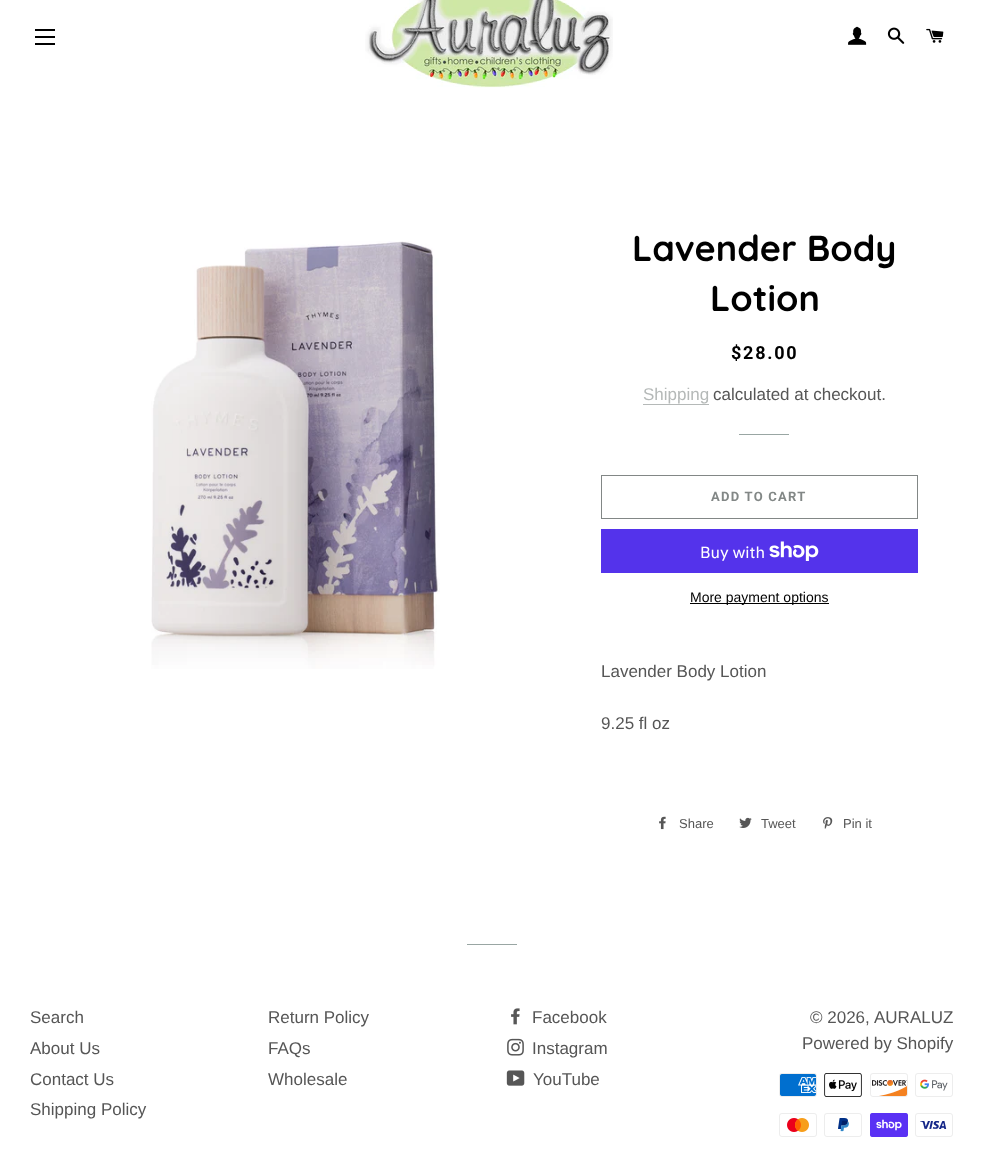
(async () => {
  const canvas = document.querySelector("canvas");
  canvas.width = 983;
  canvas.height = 1152;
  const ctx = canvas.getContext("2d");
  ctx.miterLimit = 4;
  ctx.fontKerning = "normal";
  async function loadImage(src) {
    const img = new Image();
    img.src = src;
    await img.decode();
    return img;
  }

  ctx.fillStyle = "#ffffff";
  ctx.fillRect(0, 0, 983, 1152);
  for (const [x, y, w, h, color] of [
    [35, 29, 20, 2, "#000000"],
    [35, 36, 20, 2, "#000000"],
    [35, 43, 20, 2, "#000000"],
  ]) {
    ctx.fillStyle = color;
    ctx.fillRect(x, y, w, h);
  }
  ctx.drawImage(await loadImage("img/1.png"), 365, 0, 248, 88);
  ctx.drawImage(await loadImage("img/2.png"), 848, 26, 19, 19);
  ctx.drawImage(await loadImage("img/3.png"), 887, 27, 18, 17);
  ctx.drawImage(await loadImage("img/4.png"), 926, 28, 18, 15);
  ctx.drawImage(await loadImage("img/5.png"), 151, 241, 289, 428);
  ctx.fillStyle = "#b5b9b8";
  ctx.fillRect(643, 404, 66, 1);
  ctx.fillStyle = "#99a6a3";
  ctx.fillRect(739, 434, 50, 1);
  ctx.strokeStyle = "#828786";
  ctx.strokeRect(601.5, 475.5, 316, 43);
  ctx.fillStyle = "#5433eb";
  ctx.fillRect(601, 529, 317, 44);
  ctx.drawImage(await loadImage("img/6.png"), 769, 541, 50, 20);
  ctx.fillStyle = "#000000";
  ctx.fillRect(690, 603, 139, 1);
  ctx.drawImage(await loadImage("img/7.png"), 659, 816, 7, 14);
  ctx.drawImage(await loadImage("img/8.png"), 739, 817, 13, 11);
  ctx.drawImage(await loadImage("img/9.png"), 823, 817, 10, 12);
  ctx.fillStyle = "#99a6a3";
  ctx.fillRect(467, 944, 50, 1);
  ctx.drawImage(await loadImage("img/10.png"), 511, 1008, 9, 17);
  ctx.drawImage(await loadImage("img/11.png"), 507, 1038, 17, 18);
  ctx.drawImage(await loadImage("img/12.png"), 506, 1070, 19, 16);
  ctx.drawImage(await loadImage("img/13.png"), 779, 1073, 38, 24);
  ctx.drawImage(await loadImage("img/14.png"), 824, 1073, 38, 24);
  ctx.drawImage(await loadImage("img/15.png"), 870, 1073, 38, 24);
  ctx.drawImage(await loadImage("img/16.png"), 915, 1073, 38, 24);
  ctx.drawImage(await loadImage("img/17.png"), 779, 1113, 38, 24);
  ctx.drawImage(await loadImage("img/18.png"), 824, 1113, 38, 24);
  ctx.drawImage(await loadImage("img/19.png"), 870, 1113, 38, 24);
  ctx.drawImage(await loadImage("img/20.png"), 915, 1113, 38, 24);
  ctx.font = "bold 36px Quicksand";
  ctx.fillStyle = "#000000";
  ctx.fillText("Lavender Body", 632, 261);
  ctx.fillText("Lotion", 710, 311);
  ctx.letterSpacing = "1.75px";
  ctx.font = "bold 18px Roboto";
  ctx.fillText("$28.00", 731, 359);
  ctx.letterSpacing = "0px";
  ctx.font = "17px Liberation Sans";
  ctx.fillStyle = "#b5b9b8";
  ctx.fillText("Shipping", 643, 400);
  ctx.fillStyle = "#565656";
  ctx.fillText("calculated at checkout.", 713, 400);
  ctx.letterSpacing = "1.25px";
  ctx.font = "bold 13px Roboto";
  ctx.fillStyle = "#828786";
  ctx.fillText("ADD TO CART", 711, 501);
  ctx.letterSpacing = "0px";
  ctx.font = "16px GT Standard";
  ctx.fillStyle = "#ffffff";
  ctx.fillText("Buy with", 700, 558);
  ctx.font = "14px Liberation Sans";
  ctx.fillStyle = "#000000";
  ctx.fillText("More payment options", 690, 602);
  ctx.font = "17px Liberation Sans";
  ctx.fillStyle = "#565656";
  ctx.fillText("Lavender Body Lotion", 601, 677);
  ctx.fillText("9.25 fl oz", 601, 729);
  ctx.font = "13px Liberation Sans";
  for (const [text, x, y] of [
    ["Share", 679, 828],
    ["Tweet", 761, 828],
    ["Pin it", 843, 828],
  ]) {
    ctx.fillText(text, x, y);
  }
  ctx.font = "17px Liberation Sans";
  for (const [text, x, y] of [
    ["Search", 30, 1023],
    ["About Us", 30, 1054],
    ["Contact Us", 30, 1085],
    ["Shipping Policy", 30, 1115],
    ["Return Policy", 268, 1023],
    ["FAQs", 268, 1054],
    ["Wholesale", 268, 1085],
    ["Facebook", 532, 1023],
    ["Instagram", 532, 1054],
    ["YouTube", 533, 1085],
    ["© 2026,", 810, 1023],
    ["AURALUZ", 874, 1023],
    ["Powered by Shopify", 802, 1049],
  ]) {
    ctx.fillText(text, x, y);
  }
})();
